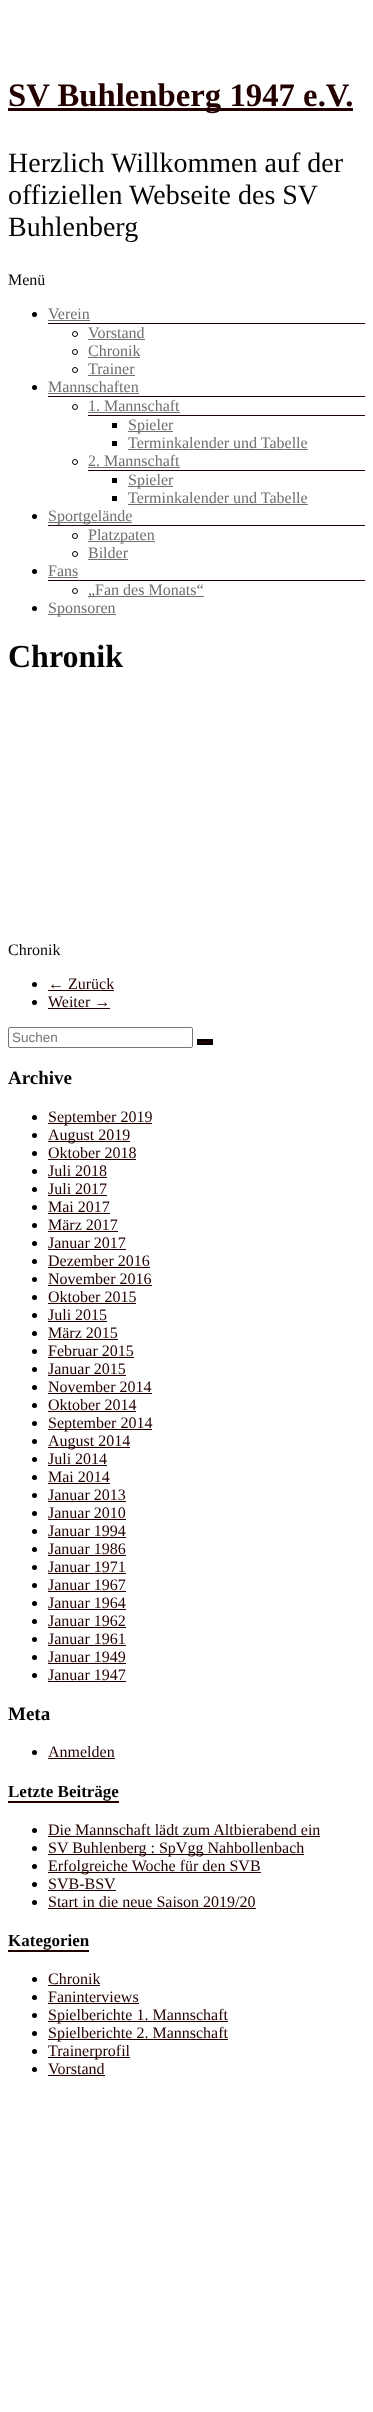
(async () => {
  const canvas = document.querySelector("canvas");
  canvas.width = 373;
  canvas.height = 2412;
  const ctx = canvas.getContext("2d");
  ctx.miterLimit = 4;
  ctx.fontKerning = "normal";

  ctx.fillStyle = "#ffffff";
  ctx.fillRect(0, 0, 373, 2412);
  ctx.fillStyle = "#230000";
  ctx.fillRect(8, 108, 345, 3);
  ctx.fillStyle = "#000000";
  ctx.beginPath();
  ctx.arc(34.5, 314.5, 2.5, 0, Math.PI * 2);
  ctx.fill();
  ctx.fillStyle = "#706f70";
  ctx.fillRect(48, 320, 42, 1);
  ctx.fillStyle = "#230000";
  ctx.fillRect(48, 323, 317, 1);
  ctx.beginPath();
  ctx.arc(75, 334, 2.5, 0, Math.PI * 2);
  ctx.strokeStyle = "#000000";
  ctx.stroke();
  ctx.fillStyle = "#706f70";
  ctx.fillRect(88, 339, 57, 1);
  ctx.beginPath();
  ctx.arc(75, 352, 2.5, 0, Math.PI * 2);
  ctx.stroke();
  ctx.fillRect(88, 357, 52, 1);
  ctx.beginPath();
  ctx.arc(75, 370, 2.5, 0, Math.PI * 2);
  ctx.stroke();
  ctx.fillRect(88, 375, 47, 1);
  ctx.fillStyle = "#000000";
  ctx.beginPath();
  ctx.arc(34.5, 387.5, 2.5, 0, Math.PI * 2);
  ctx.fill();
  ctx.fillStyle = "#706f70";
  ctx.fillRect(48, 393, 91, 1);
  ctx.fillStyle = "#230000";
  ctx.fillRect(48, 396, 317, 1);
  ctx.beginPath();
  ctx.arc(75, 407, 2.5, 0, Math.PI * 2);
  ctx.stroke();
  for (const [x, y, w, h, color] of [
    [88, 412, 92, 1, "#706f70"],
    [88, 415, 277, 1, "#230000"],
    [112, 423, 5, 5, "#000000"],
    [128, 431, 45, 1, "#706f70"],
    [112, 441, 5, 5, "#000000"],
    [128, 449, 180, 1, "#706f70"],
  ]) {
    ctx.fillStyle = color;
    ctx.fillRect(x, y, w, h);
  }
  ctx.beginPath();
  ctx.arc(75, 462, 2.5, 0, Math.PI * 2);
  ctx.stroke();
  for (const [x, y, w, h, color] of [
    [88, 467, 92, 1, "#706f70"],
    [88, 470, 277, 1, "#230000"],
    [112, 478, 5, 5, "#000000"],
    [128, 486, 45, 1, "#706f70"],
    [112, 496, 5, 5, "#000000"],
    [128, 504, 180, 1, "#706f70"],
  ]) {
    ctx.fillStyle = color;
    ctx.fillRect(x, y, w, h);
  }
  ctx.fillStyle = "#000000";
  ctx.beginPath();
  ctx.arc(34.5, 516.5, 2.5, 0, Math.PI * 2);
  ctx.fill();
  ctx.fillStyle = "#706f70";
  ctx.fillRect(48, 522, 84, 1);
  ctx.fillStyle = "#230000";
  ctx.fillRect(48, 525, 317, 1);
  ctx.beginPath();
  ctx.arc(75, 536, 2.5, 0, Math.PI * 2);
  ctx.stroke();
  ctx.fillStyle = "#706f70";
  ctx.fillRect(88, 541, 67, 1);
  ctx.beginPath();
  ctx.arc(75, 554, 2.5, 0, Math.PI * 2);
  ctx.stroke();
  ctx.fillRect(88, 559, 40, 1);
  ctx.fillStyle = "#000000";
  ctx.beginPath();
  ctx.arc(34.5, 571.5, 2.5, 0, Math.PI * 2);
  ctx.fill();
  ctx.fillStyle = "#706f70";
  ctx.fillRect(48, 577, 30, 1);
  ctx.fillStyle = "#230000";
  ctx.fillRect(48, 580, 317, 1);
  ctx.beginPath();
  ctx.arc(75, 591, 2.5, 0, Math.PI * 2);
  ctx.stroke();
  ctx.fillStyle = "#706f70";
  ctx.fillRect(88, 596, 116, 1);
  ctx.fillStyle = "#000000";
  ctx.beginPath();
  ctx.arc(34.5, 608.5, 2.5, 0, Math.PI * 2);
  ctx.fill();
  ctx.fillStyle = "#706f70";
  ctx.fillRect(48, 614, 68, 1);
  ctx.fillStyle = "#000000";
  ctx.beginPath();
  ctx.arc(34.5, 984.5, 2.5, 0, Math.PI * 2);
  ctx.fill();
  ctx.fillStyle = "#230000";
  ctx.fillRect(48, 990, 66, 1);
  ctx.fillStyle = "#000000";
  ctx.beginPath();
  ctx.arc(34.5, 1002.5, 2.5, 0, Math.PI * 2);
  ctx.fill();
  ctx.fillStyle = "#230000";
  ctx.fillRect(48, 1008, 62, 1);
  ctx.beginPath();
  ctx.roundRect(8.5, 1027.5, 184, 20, 1.5);
  ctx.strokeStyle = "#767676";
  ctx.stroke();
  ctx.beginPath();
  ctx.rect(198, 1040, 14, 4);
  ctx.fill();
  ctx.strokeStyle = "#000000";
  ctx.lineWidth = 2;
  ctx.stroke();
  ctx.fillStyle = "#000000";
  ctx.beginPath();
  ctx.arc(34.5, 1117.5, 2.5, 0, Math.PI * 2);
  ctx.fill();
  ctx.fillStyle = "#230000";
  ctx.fillRect(48, 1123, 104, 1);
  ctx.fillStyle = "#000000";
  ctx.beginPath();
  ctx.arc(34.5, 1135.5, 2.5, 0, Math.PI * 2);
  ctx.fill();
  ctx.fillStyle = "#230000";
  ctx.fillRect(48, 1141, 82, 1);
  ctx.fillStyle = "#000000";
  ctx.beginPath();
  ctx.arc(34.5, 1153.5, 2.5, 0, Math.PI * 2);
  ctx.fill();
  ctx.fillStyle = "#230000";
  ctx.fillRect(48, 1159, 88, 1);
  ctx.fillStyle = "#000000";
  ctx.beginPath();
  ctx.arc(34.5, 1171.5, 2.5, 0, Math.PI * 2);
  ctx.fill();
  ctx.fillStyle = "#230000";
  ctx.fillRect(48, 1177, 59, 1);
  ctx.fillStyle = "#000000";
  ctx.beginPath();
  ctx.arc(34.5, 1189.5, 2.5, 0, Math.PI * 2);
  ctx.fill();
  ctx.fillStyle = "#230000";
  ctx.fillRect(48, 1195, 59, 1);
  ctx.fillStyle = "#000000";
  ctx.beginPath();
  ctx.arc(34.5, 1207.5, 2.5, 0, Math.PI * 2);
  ctx.fill();
  ctx.fillStyle = "#230000";
  ctx.fillRect(48, 1213, 62, 1);
  ctx.fillStyle = "#000000";
  ctx.beginPath();
  ctx.arc(34.5, 1225.5, 2.5, 0, Math.PI * 2);
  ctx.fill();
  ctx.fillStyle = "#230000";
  ctx.fillRect(48, 1231, 70, 1);
  ctx.fillStyle = "#000000";
  ctx.beginPath();
  ctx.arc(34.5, 1243.5, 2.5, 0, Math.PI * 2);
  ctx.fill();
  ctx.fillStyle = "#230000";
  ctx.fillRect(48, 1249, 78, 1);
  ctx.fillStyle = "#000000";
  ctx.beginPath();
  ctx.arc(34.5, 1261.5, 2.5, 0, Math.PI * 2);
  ctx.fill();
  ctx.fillStyle = "#230000";
  ctx.fillRect(48, 1267, 102, 1);
  ctx.fillStyle = "#000000";
  ctx.beginPath();
  ctx.arc(34.5, 1279.5, 2.5, 0, Math.PI * 2);
  ctx.fill();
  ctx.fillStyle = "#230000";
  ctx.fillRect(48, 1285, 104, 1);
  ctx.fillStyle = "#000000";
  ctx.beginPath();
  ctx.arc(34.5, 1297.5, 2.5, 0, Math.PI * 2);
  ctx.fill();
  ctx.fillStyle = "#230000";
  ctx.fillRect(48, 1303, 88, 1);
  ctx.fillStyle = "#000000";
  ctx.beginPath();
  ctx.arc(34.5, 1315.5, 2.5, 0, Math.PI * 2);
  ctx.fill();
  ctx.fillStyle = "#230000";
  ctx.fillRect(48, 1321, 59, 1);
  ctx.fillStyle = "#000000";
  ctx.beginPath();
  ctx.arc(34.5, 1333.5, 2.5, 0, Math.PI * 2);
  ctx.fill();
  ctx.fillStyle = "#230000";
  ctx.fillRect(48, 1339, 70, 1);
  ctx.fillStyle = "#000000";
  ctx.beginPath();
  ctx.arc(34.5, 1351.5, 2.5, 0, Math.PI * 2);
  ctx.fill();
  ctx.fillStyle = "#230000";
  ctx.fillRect(48, 1357, 86, 1);
  ctx.fillStyle = "#000000";
  ctx.beginPath();
  ctx.arc(34.5, 1369.5, 2.5, 0, Math.PI * 2);
  ctx.fill();
  ctx.fillStyle = "#230000";
  ctx.fillRect(48, 1375, 78, 1);
  ctx.fillStyle = "#000000";
  ctx.beginPath();
  ctx.arc(34.5, 1387.5, 2.5, 0, Math.PI * 2);
  ctx.fill();
  ctx.fillStyle = "#230000";
  ctx.fillRect(48, 1393, 104, 1);
  ctx.fillStyle = "#000000";
  ctx.beginPath();
  ctx.arc(34.5, 1405.5, 2.5, 0, Math.PI * 2);
  ctx.fill();
  ctx.fillStyle = "#230000";
  ctx.fillRect(48, 1411, 88, 1);
  ctx.fillStyle = "#000000";
  ctx.beginPath();
  ctx.arc(34.5, 1423.5, 2.5, 0, Math.PI * 2);
  ctx.fill();
  ctx.fillStyle = "#230000";
  ctx.fillRect(48, 1429, 104, 1);
  ctx.fillStyle = "#000000";
  ctx.beginPath();
  ctx.arc(34.5, 1441.5, 2.5, 0, Math.PI * 2);
  ctx.fill();
  ctx.fillStyle = "#230000";
  ctx.fillRect(48, 1447, 82, 1);
  ctx.fillStyle = "#000000";
  ctx.beginPath();
  ctx.arc(34.5, 1459.5, 2.5, 0, Math.PI * 2);
  ctx.fill();
  ctx.fillStyle = "#230000";
  ctx.fillRect(48, 1465, 59, 1);
  ctx.fillStyle = "#000000";
  ctx.beginPath();
  ctx.arc(34.5, 1477.5, 2.5, 0, Math.PI * 2);
  ctx.fill();
  ctx.fillStyle = "#230000";
  ctx.fillRect(48, 1483, 62, 1);
  ctx.fillStyle = "#000000";
  ctx.beginPath();
  ctx.arc(34.5, 1495.5, 2.5, 0, Math.PI * 2);
  ctx.fill();
  ctx.fillStyle = "#230000";
  ctx.fillRect(48, 1501, 78, 1);
  ctx.fillStyle = "#000000";
  ctx.beginPath();
  ctx.arc(34.5, 1513.5, 2.5, 0, Math.PI * 2);
  ctx.fill();
  ctx.fillStyle = "#230000";
  ctx.fillRect(48, 1519, 78, 1);
  ctx.fillStyle = "#000000";
  ctx.beginPath();
  ctx.arc(34.5, 1531.5, 2.5, 0, Math.PI * 2);
  ctx.fill();
  ctx.fillStyle = "#230000";
  ctx.fillRect(48, 1537, 78, 1);
  ctx.fillStyle = "#000000";
  ctx.beginPath();
  ctx.arc(34.5, 1549.5, 2.5, 0, Math.PI * 2);
  ctx.fill();
  ctx.fillStyle = "#230000";
  ctx.fillRect(48, 1555, 78, 1);
  ctx.fillStyle = "#000000";
  ctx.beginPath();
  ctx.arc(34.5, 1567.5, 2.5, 0, Math.PI * 2);
  ctx.fill();
  ctx.fillStyle = "#230000";
  ctx.fillRect(48, 1573, 78, 1);
  ctx.fillStyle = "#000000";
  ctx.beginPath();
  ctx.arc(34.5, 1585.5, 2.5, 0, Math.PI * 2);
  ctx.fill();
  ctx.fillStyle = "#230000";
  ctx.fillRect(48, 1591, 78, 1);
  ctx.fillStyle = "#000000";
  ctx.beginPath();
  ctx.arc(34.5, 1603.5, 2.5, 0, Math.PI * 2);
  ctx.fill();
  ctx.fillStyle = "#230000";
  ctx.fillRect(48, 1609, 78, 1);
  ctx.fillStyle = "#000000";
  ctx.beginPath();
  ctx.arc(34.5, 1621.5, 2.5, 0, Math.PI * 2);
  ctx.fill();
  ctx.fillStyle = "#230000";
  ctx.fillRect(48, 1627, 78, 1);
  ctx.fillStyle = "#000000";
  ctx.beginPath();
  ctx.arc(34.5, 1639.5, 2.5, 0, Math.PI * 2);
  ctx.fill();
  ctx.fillStyle = "#230000";
  ctx.fillRect(48, 1645, 78, 1);
  ctx.fillStyle = "#000000";
  ctx.beginPath();
  ctx.arc(34.5, 1657.5, 2.5, 0, Math.PI * 2);
  ctx.fill();
  ctx.fillStyle = "#230000";
  ctx.fillRect(48, 1663, 78, 1);
  ctx.fillStyle = "#000000";
  ctx.beginPath();
  ctx.arc(34.5, 1675.5, 2.5, 0, Math.PI * 2);
  ctx.fill();
  ctx.fillStyle = "#230000";
  ctx.fillRect(48, 1681, 78, 1);
  ctx.fillStyle = "#000000";
  ctx.beginPath();
  ctx.arc(34.5, 1752.5, 2.5, 0, Math.PI * 2);
  ctx.fill();
  ctx.fillStyle = "#230000";
  ctx.fillRect(48, 1758, 67, 1);
  ctx.fillRect(8, 1801, 111, 2);
  ctx.fillStyle = "#000000";
  ctx.beginPath();
  ctx.arc(34.5, 1830.5, 2.5, 0, Math.PI * 2);
  ctx.fill();
  ctx.fillStyle = "#230000";
  ctx.fillRect(48, 1836, 272, 1);
  ctx.fillStyle = "#000000";
  ctx.beginPath();
  ctx.arc(34.5, 1848.5, 2.5, 0, Math.PI * 2);
  ctx.fill();
  ctx.fillStyle = "#230000";
  ctx.fillRect(48, 1854, 256, 1);
  ctx.fillStyle = "#000000";
  ctx.beginPath();
  ctx.arc(34.5, 1866.5, 2.5, 0, Math.PI * 2);
  ctx.fill();
  ctx.fillStyle = "#230000";
  ctx.fillRect(48, 1872, 213, 1);
  ctx.fillStyle = "#000000";
  ctx.beginPath();
  ctx.arc(34.5, 1884.5, 2.5, 0, Math.PI * 2);
  ctx.fill();
  ctx.fillStyle = "#230000";
  ctx.fillRect(48, 1890, 68, 1);
  ctx.fillStyle = "#000000";
  ctx.beginPath();
  ctx.arc(34.5, 1902.5, 2.5, 0, Math.PI * 2);
  ctx.fill();
  ctx.fillStyle = "#230000";
  ctx.fillRect(48, 1908, 208, 1);
  ctx.fillRect(8, 1950, 81, 2);
  ctx.fillStyle = "#000000";
  ctx.beginPath();
  ctx.arc(34.5, 1979.5, 2.5, 0, Math.PI * 2);
  ctx.fill();
  ctx.fillStyle = "#230000";
  ctx.fillRect(48, 1985, 52, 1);
  ctx.fillStyle = "#000000";
  ctx.beginPath();
  ctx.arc(34.5, 1997.5, 2.5, 0, Math.PI * 2);
  ctx.fill();
  ctx.fillStyle = "#230000";
  ctx.fillRect(48, 2003, 91, 1);
  ctx.fillStyle = "#000000";
  ctx.beginPath();
  ctx.arc(34.5, 2015.5, 2.5, 0, Math.PI * 2);
  ctx.fill();
  ctx.fillStyle = "#230000";
  ctx.fillRect(48, 2021, 180, 1);
  ctx.fillStyle = "#000000";
  ctx.beginPath();
  ctx.arc(34.5, 2033.5, 2.5, 0, Math.PI * 2);
  ctx.fill();
  ctx.fillStyle = "#230000";
  ctx.fillRect(48, 2039, 180, 1);
  ctx.fillStyle = "#000000";
  ctx.beginPath();
  ctx.arc(34.5, 2051.5, 2.5, 0, Math.PI * 2);
  ctx.fill();
  ctx.fillStyle = "#230000";
  ctx.fillRect(48, 2057, 82, 1);
  ctx.fillStyle = "#000000";
  ctx.beginPath();
  ctx.arc(34.5, 2069.5, 2.5, 0, Math.PI * 2);
  ctx.fill();
  ctx.fillStyle = "#230000";
  ctx.fillRect(48, 2075, 57, 1);
  ctx.font = "bold 32.75px Liberation Serif";
  ctx.fillText("SV Buhlenberg 1947 e.V.", 8, 106);
  ctx.font = "28px Liberation Serif";
  ctx.fillStyle = "#050505";
  for (const [text, x, y] of [
    ["Herzlich Willkommen auf der", 8, 172],
    ["offiziellen Webseite des SV", 8, 204],
    ["Buhlenberg", 8, 236],
  ]) {
    ctx.fillText(text, x, y);
  }
  ctx.font = "16px Liberation Serif";
  ctx.fillText("Menü", 8, 285);
  ctx.fillStyle = "#706f70";
  for (const [text, x, y] of [
    ["Verein", 48, 319],
    ["Vorstand", 88, 338],
    ["Chronik", 88, 356],
    ["Trainer", 88, 374],
    ["Mannschaften", 48, 392],
    ["1. Mannschaft", 88, 411],
    ["Spieler", 128, 430],
    ["Terminkalender und Tabelle", 128, 448],
    ["2. Mannschaft", 88, 466],
    ["Spieler", 128, 485],
    ["Terminkalender und Tabelle", 128, 503],
    ["Sportgelände", 48, 521],
    ["Platzpaten", 88, 540],
    ["Bilder", 88, 558],
    ["Fans", 48, 576],
    ["„Fan des Monats“", 88, 595],
    ["Sponsoren", 48, 613],
  ]) {
    ctx.fillText(text, x, y);
  }
  ctx.font = "bold 32px Liberation Serif";
  ctx.fillStyle = "#050505";
  ctx.fillText("Chronik", 8, 667);
  ctx.font = "16px Liberation Serif";
  ctx.fillText("Chronik", 8, 955);
  ctx.fillStyle = "#230000";
  ctx.fillText("← Zurück", 48, 989);
  ctx.fillText("Weiter →", 48, 1007);
  ctx.font = "13.5px Liberation Sans";
  ctx.fillStyle = "#757575";
  ctx.fillText("Suchen", 12, 1042);
  ctx.font = "bold 19px Liberation Serif";
  ctx.fillStyle = "#050505";
  ctx.fillText("Archive", 8, 1084);
  ctx.font = "16px Liberation Serif";
  ctx.fillStyle = "#230000";
  for (const [text, x, y] of [
    ["September 2019", 48, 1122],
    ["August 2019", 48, 1140],
    ["Oktober 2018", 48, 1158],
    ["Juli 2018", 48, 1176],
    ["Juli 2017", 48, 1194],
    ["Mai 2017", 48, 1212],
    ["März 2017", 48, 1230],
    ["Januar 2017", 48, 1248],
    ["Dezember 2016", 48, 1266],
    ["November 2016", 48, 1284],
    ["Oktober 2015", 48, 1302],
    ["Juli 2015", 48, 1320],
    ["März 2015", 48, 1338],
    ["Februar 2015", 48, 1356],
    ["Januar 2015", 48, 1374],
    ["November 2014", 48, 1392],
    ["Oktober 2014", 48, 1410],
    ["September 2014", 48, 1428],
    ["August 2014", 48, 1446],
    ["Juli 2014", 48, 1464],
    ["Mai 2014", 48, 1482],
    ["Januar 2013", 48, 1500],
    ["Januar 2010", 48, 1518],
    ["Januar 1994", 48, 1536],
    ["Januar 1986", 48, 1554],
    ["Januar 1971", 48, 1572],
    ["Januar 1967", 48, 1590],
    ["Januar 1964", 48, 1608],
    ["Januar 1962", 48, 1626],
    ["Januar 1961", 48, 1644],
    ["Januar 1949", 48, 1662],
    ["Januar 1947", 48, 1680],
  ]) {
    ctx.fillText(text, x, y);
  }
  ctx.font = "bold 19px Liberation Serif";
  ctx.fillStyle = "#050505";
  ctx.fillText("Meta", 8, 1720);
  ctx.font = "16px Liberation Serif";
  ctx.fillStyle = "#230000";
  ctx.fillText("Anmelden", 48, 1757);
  ctx.font = "bold 17px Liberation Serif";
  ctx.fillStyle = "#050505";
  ctx.fillText("Letzte Beiträge", 8, 1797);
  ctx.font = "16px Liberation Serif";
  ctx.fillStyle = "#230000";
  for (const [text, x, y] of [
    ["Die Mannschaft lädt zum Altbierabend ein", 48, 1835],
    ["SV Buhlenberg : SpVgg Nahbollenbach", 48, 1853],
    ["Erfolgreiche Woche für den SVB", 48, 1871],
    ["SVB-BSV", 48, 1889],
    ["Start in die neue Saison 2019/20", 48, 1907],
  ]) {
    ctx.fillText(text, x, y);
  }
  ctx.font = "bold 17px Liberation Serif";
  ctx.fillStyle = "#050505";
  ctx.fillText("Kategorien", 8, 1946);
  ctx.font = "16px Liberation Serif";
  ctx.fillStyle = "#230000";
  for (const [text, x, y] of [
    ["Chronik", 48, 1984],
    ["Faninterviews", 48, 2002],
    ["Spielberichte 1. Mannschaft", 48, 2020],
    ["Spielberichte 2. Mannschaft", 48, 2038],
    ["Trainerprofil", 48, 2056],
    ["Vorstand", 48, 2074],
  ]) {
    ctx.fillText(text, x, y);
  }
})();
